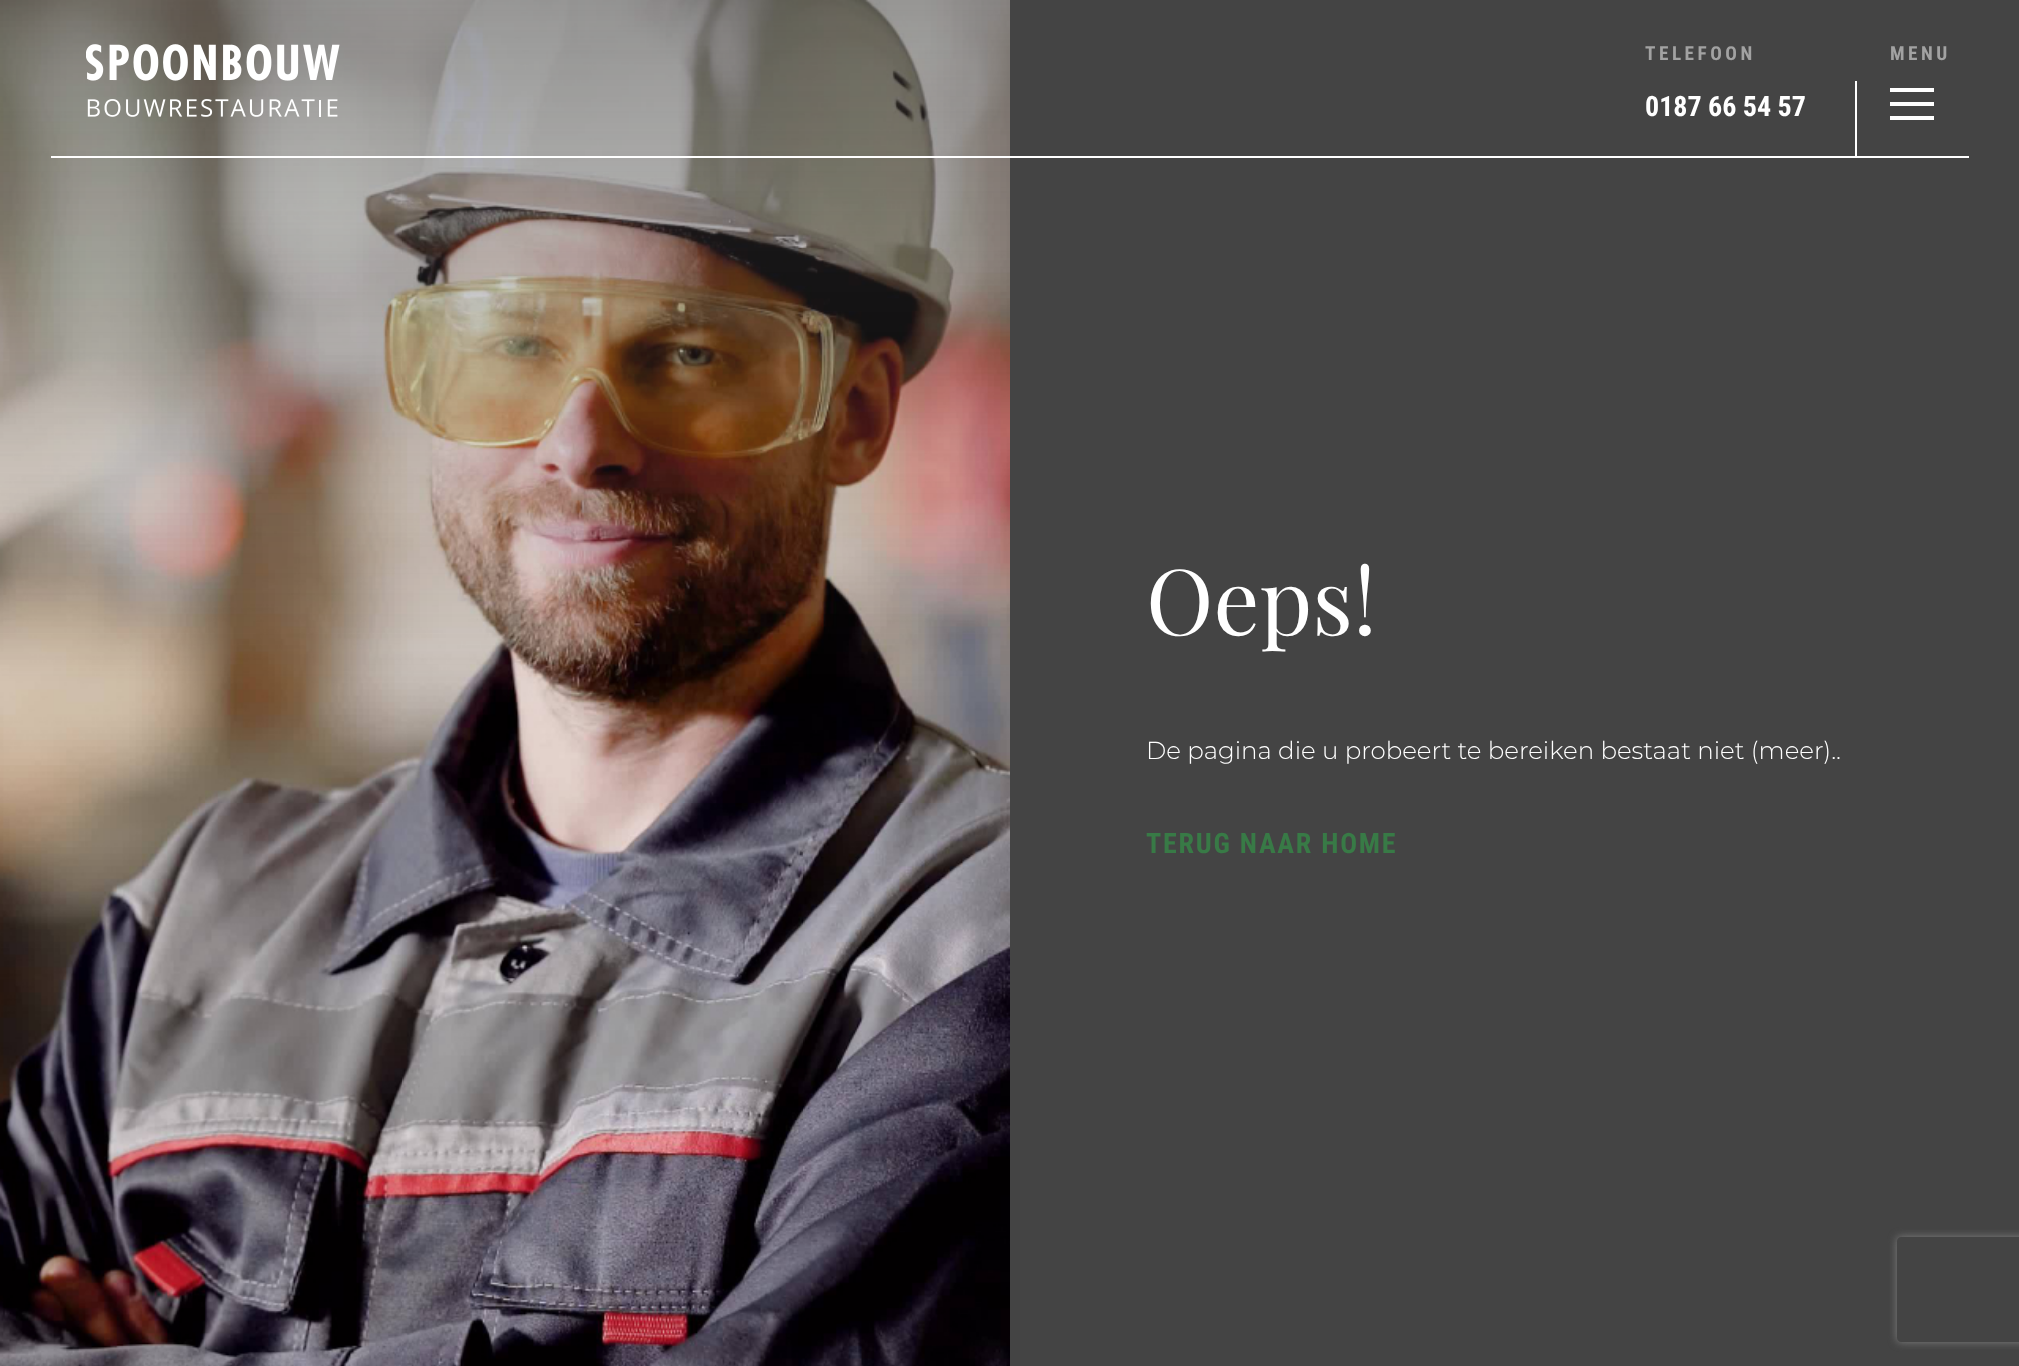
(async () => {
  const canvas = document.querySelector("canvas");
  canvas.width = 2019;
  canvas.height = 1366;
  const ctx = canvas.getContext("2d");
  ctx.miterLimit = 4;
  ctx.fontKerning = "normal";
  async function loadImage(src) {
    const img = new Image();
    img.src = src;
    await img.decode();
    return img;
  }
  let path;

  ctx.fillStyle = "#ffffff";
  ctx.fillRect(0, 0, 2019, 1366);
  ctx.drawImage(await loadImage("img/2.png"), 0, 0, 1010, 1366);
  ctx.fillStyle = "#444444";
  ctx.fillRect(1010, 0, 1009, 1366);
  ctx.fillStyle = "#ffffff";
  ctx.fillRect(51, 156, 1918, 2);
  ctx.drawImage(await loadImage("img/1.png"), 86, 44, 254, 73);
  for (const [x, y, w, h, color] of [
    [1855, 81, 2, 75, "#ffffff"],
    [1890, 88, 44, 4, "#ffffff"],
    [1890, 102, 44, 4, "#ffffff"],
    [1890, 116, 44, 4, "#ffffff"],
  ]) {
    ctx.fillStyle = color;
    ctx.fillRect(x, y, w, h);
  }
  ctx.save();
  path = new Path2D("M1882 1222H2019V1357H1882ZM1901 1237H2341C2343 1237 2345 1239 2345 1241V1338C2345 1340 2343 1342 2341 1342H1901C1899 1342 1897 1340 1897 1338V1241C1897 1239 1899 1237 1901 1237Z");
  ctx.clip(path, "evenodd");
  ctx.fillStyle = "#808080";
  ctx.filter = "blur(4.5px)";
  ctx.beginPath();
  ctx.roundRect(1897, 1237, 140, 105, 4);
  ctx.fill();
  ctx.filter = "none";
  ctx.restore();
  ctx.letterSpacing = "3.5px";
  ctx.font = "bold 19.25px Roboto Condensed";
  ctx.fillStyle = "#a2a2a2";
  ctx.fillText("TELEFOON", 1645, 60);
  ctx.letterSpacing = "0px";
  ctx.font = "bold 28px Roboto Condensed";
  ctx.fillStyle = "#ffffff";
  ctx.fillText("0187 66 54 57", 1645, 116);
  ctx.letterSpacing = "3.5px";
  ctx.font = "bold 19.25px Roboto Condensed";
  ctx.fillStyle = "#a2a2a2";
  ctx.fillText("MENU", 1890, 60);
  ctx.letterSpacing = "0px";
  ctx.font = "91px Playfair Display";
  ctx.fillStyle = "#ffffff";
  ctx.fillText("Oeps!", 1146, 635);
  ctx.font = "300 24.5px Montserrat";
  ctx.fillText("De pagina die u probeert te bereiken bestaat niet (meer)..", 1146, 759);
  ctx.letterSpacing = "1.75px";
  ctx.font = "bold 28px Roboto Condensed";
  ctx.fillStyle = "#387a46";
  ctx.fillText("TERUG NAAR HOME", 1146, 853);
})();
